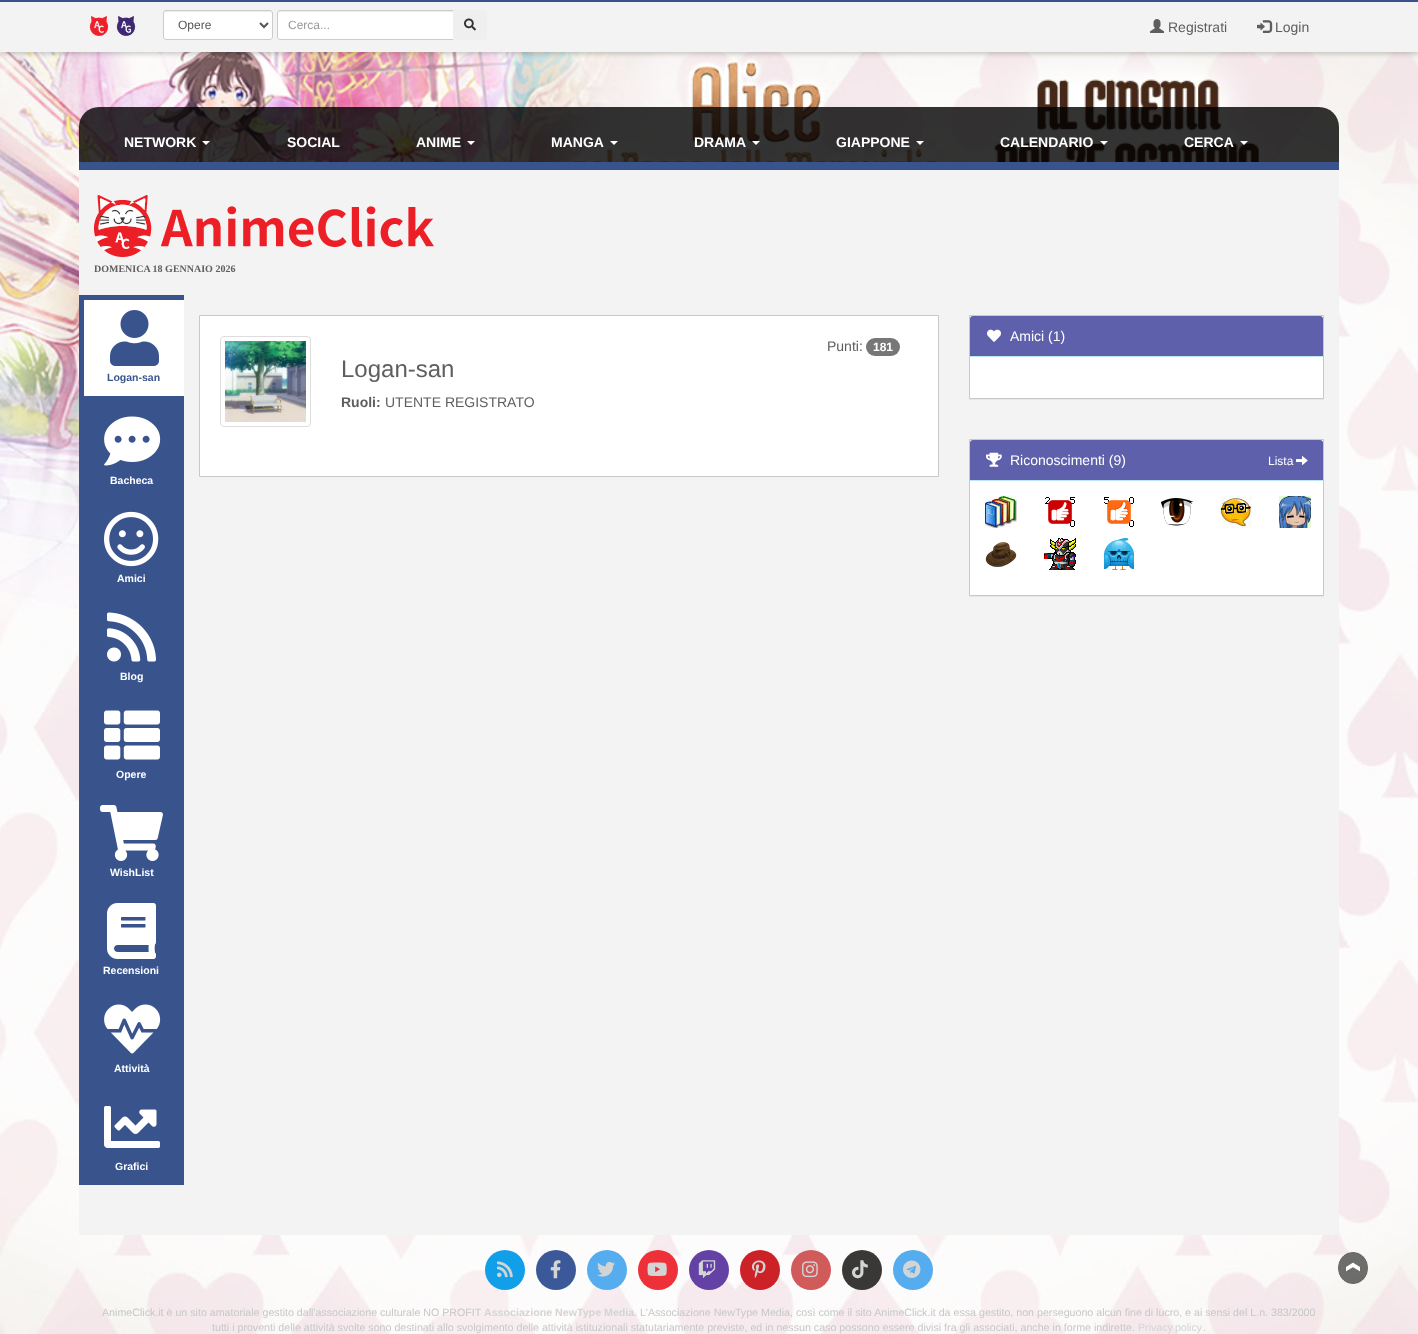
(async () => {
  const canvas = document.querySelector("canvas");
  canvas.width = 1418;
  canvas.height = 1334;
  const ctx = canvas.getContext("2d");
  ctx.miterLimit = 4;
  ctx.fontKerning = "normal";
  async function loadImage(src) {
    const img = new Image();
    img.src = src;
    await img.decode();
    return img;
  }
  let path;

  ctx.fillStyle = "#ffffff";
  ctx.fillRect(0, 0, 1418, 1334);
  ctx.drawImage(await loadImage("img/1.png"), 0, 52, 1418, 1282);
  ctx.fillStyle = "rgba(0, 0, 0, 0.2)";
  ctx.filter = "blur(2.5px)";
  ctx.beginPath();
  ctx.rect(0, 2, 1418, 52);
  ctx.fill();
  ctx.filter = "none";
  ctx.fillStyle = "#f3f3f3";
  ctx.fillRect(0, 2, 1418, 50);
  ctx.fillStyle = "#39548d";
  ctx.fillRect(0, 0, 1418, 2);
  ctx.drawImage(await loadImage("img/2.png"), 89, 16, 20, 20);
  ctx.drawImage(await loadImage("img/3.png"), 116, 16, 20, 20);
  ctx.fillStyle = "#ffffff";
  ctx.beginPath();
  ctx.roundRect(163, 10, 110, 30, 3);
  ctx.fill();
  ctx.fillStyle = "#ececec";
  path = new Path2D("M166 12H270C271 12 272 13 272 14C272 13 272 11 270 11H166C164 11 164 13 164 14C164 13 165 12 166 12Z");
  ctx.fill(path);
  ctx.beginPath();
  ctx.roundRect(163.5, 10.5, 109, 29, 2.5);
  ctx.strokeStyle = "#cccccc";
  ctx.stroke();
  path = new Path2D("M260 23L264 27L268 23");
  ctx.strokeStyle = "#555555";
  ctx.lineWidth = 2;
  ctx.stroke(path);
  ctx.fillStyle = "#ffffff";
  ctx.beginPath();
  ctx.roundRect(277, 10, 177, 30, [3, 0, 0, 3]);
  ctx.fill();
  ctx.fillStyle = "#ececec";
  path = new Path2D("M280 12H453V11H279C278 12 278 13 278 14C278 13 279 12 280 12Z");
  ctx.fill(path);
  ctx.beginPath();
  ctx.roundRect(277.5, 10.5, 176, 29, [2.5, 0, 0, 2.5]);
  ctx.strokeStyle = "#cccccc";
  ctx.lineWidth = 1;
  ctx.stroke();
  ctx.fillStyle = "#efefef";
  ctx.beginPath();
  ctx.roundRect(453, 10, 34, 30, [0, 3, 3, 0]);
  ctx.fill();
  ctx.drawImage(await loadImage("img/4.png"), 464, 18, 12, 13);
  ctx.drawImage(await loadImage("img/5.png"), 1150, 19, 14, 14);
  ctx.drawImage(await loadImage("img/6.png"), 1257, 20, 16, 13);
  ctx.fillStyle = "rgba(0, 0, 0, 0.8)";
  ctx.beginPath();
  ctx.roundRect(79, 107, 1260, 63, [20, 20, 0, 0]);
  ctx.fill();
  ctx.fillStyle = "#39548d";
  ctx.fillRect(79, 162, 1260, 8);
  ctx.fillStyle = "#ffffff";
  path = new Path2D("M202 141H210L206 145Z");
  ctx.fill(path);
  path = new Path2D("M467 141H475L471 145Z");
  ctx.fill(path);
  path = new Path2D("M610 141H618L614 145Z");
  ctx.fill(path);
  path = new Path2D("M752 141H760L756 145Z");
  ctx.fill(path);
  path = new Path2D("M916 141H924L920 145Z");
  ctx.fill(path);
  path = new Path2D("M1100 141H1108L1104 145Z");
  ctx.fill(path);
  path = new Path2D("M1240 141H1248L1244 145Z");
  ctx.fill(path);
  ctx.fillStyle = "#f3f3f3";
  ctx.fillRect(79, 170, 1260, 1065);
  ctx.drawImage(await loadImage("img/7.png"), 94, 195, 340, 62);
  for (const [x, y, w, h, color] of [
    [79, 396, 105, 789, "#39548d"],
    [84, 300, 100, 96, "#ffffff"],
    [79, 295, 105, 5, "#39548d"],
    [79, 295, 5, 106, "#39548d"],
  ]) {
    ctx.fillStyle = color;
    ctx.fillRect(x, y, w, h);
  }
  ctx.drawImage(await loadImage("img/8.png"), 110, 310, 49, 56);
  ctx.drawImage(await loadImage("img/9.png"), 104, 416, 57, 50);
  ctx.drawImage(await loadImage("img/10.png"), 104, 511, 55, 56);
  ctx.drawImage(await loadImage("img/11.png"), 107, 612, 49, 50);
  ctx.drawImage(await loadImage("img/12.png"), 104, 710, 56, 50);
  ctx.drawImage(await loadImage("img/13.png"), 100, 805, 63, 56);
  ctx.drawImage(await loadImage("img/14.png"), 107, 903, 49, 56);
  ctx.drawImage(await loadImage("img/15.png"), 104, 1004, 57, 50);
  ctx.drawImage(await loadImage("img/16.png"), 104, 1106, 56, 42);
  ctx.fillStyle = "#ffffff";
  ctx.beginPath();
  ctx.rect(199.5, 315.5, 739, 161);
  ctx.fill();
  ctx.strokeStyle = "#c8c8c8";
  ctx.stroke();
  ctx.beginPath();
  ctx.roundRect(220.5, 336.5, 90, 90, 3.5);
  ctx.strokeStyle = "#dddddd";
  ctx.stroke();
  ctx.drawImage(await loadImage("img/17.png"), 225, 341, 81, 81);
  ctx.fillStyle = "#777777";
  ctx.beginPath();
  ctx.roundRect(866, 338, 34, 18, 9);
  ctx.fill();
  ctx.fillStyle = "rgba(0, 0, 0, 0.05)";
  ctx.filter = "blur(0.5px)";
  ctx.beginPath();
  ctx.rect(969, 316, 355, 84);
  ctx.fill();
  ctx.filter = "none";
  ctx.fillStyle = "#ffffff";
  ctx.beginPath();
  ctx.rect(969.5, 315.5, 354, 83);
  ctx.fill();
  ctx.strokeStyle = "#c8c8c8";
  ctx.stroke();
  ctx.fillStyle = "#5e60ab";
  ctx.beginPath();
  ctx.roundRect(970, 316, 353, 41, [3, 3, 0, 0]);
  ctx.fill();
  ctx.fillStyle = "#bce8f1";
  ctx.fillRect(970, 356, 353, 1);
  ctx.drawImage(await loadImage("img/18.png"), 987, 329, 14, 13);
  ctx.fillStyle = "rgba(0, 0, 0, 0.05)";
  ctx.filter = "blur(0.5px)";
  ctx.beginPath();
  ctx.rect(969, 440, 355, 157);
  ctx.fill();
  ctx.filter = "none";
  ctx.fillStyle = "#ffffff";
  ctx.beginPath();
  ctx.rect(969.5, 439.5, 354, 156);
  ctx.fill();
  ctx.stroke();
  ctx.fillStyle = "#5e60ab";
  ctx.beginPath();
  ctx.roundRect(970, 440, 353, 41, [3, 3, 0, 0]);
  ctx.fill();
  ctx.fillStyle = "#bce8f1";
  ctx.fillRect(970, 480, 353, 1);
  ctx.drawImage(await loadImage("img/19.png"), 986, 452, 16, 15);
  ctx.drawImage(await loadImage("img/20.png"), 1296, 456, 12, 10);
  ctx.drawImage(await loadImage("img/21.png"), 985, 496, 32, 32);
  ctx.drawImage(await loadImage("img/22.png"), 1045, 497, 30, 30);
  ctx.drawImage(await loadImage("img/23.png"), 1104, 497, 30, 30);
  ctx.drawImage(await loadImage("img/24.png"), 1161, 498, 32, 28);
  ctx.drawImage(await loadImage("img/25.png"), 1220, 496, 32, 32);
  ctx.drawImage(await loadImage("img/26.png"), 1279, 496, 32, 32);
  ctx.drawImage(await loadImage("img/27.png"), 985, 542, 32, 25);
  ctx.drawImage(await loadImage("img/28.png"), 1044, 538, 32, 32);
  ctx.drawImage(await loadImage("img/29.png"), 1103, 538, 31, 32);
  ctx.drawImage(await loadImage("img/30.png"), 1338, 1252, 30, 32);
  ctx.fillStyle = "#129fea";
  ctx.beginPath();
  ctx.arc(505, 1270, 20, 0, Math.PI * 2);
  ctx.fill();
  ctx.drawImage(await loadImage("img/31.png"), 497, 1261, 16, 17);
  ctx.fillStyle = "#3b5998";
  ctx.beginPath();
  ctx.arc(556, 1270, 20, 0, Math.PI * 2);
  ctx.fill();
  ctx.drawImage(await loadImage("img/32.png"), 550, 1260, 11, 19);
  ctx.fillStyle = "#55acee";
  ctx.beginPath();
  ctx.arc(607, 1270, 20, 0, Math.PI * 2);
  ctx.fill();
  ctx.drawImage(await loadImage("img/33.png"), 597, 1262, 18, 15);
  ctx.fillStyle = "#ee3138";
  ctx.beginPath();
  ctx.arc(658, 1270, 20, 0, Math.PI * 2);
  ctx.fill();
  ctx.drawImage(await loadImage("img/34.png"), 647, 1262, 20, 14);
  ctx.fillStyle = "#6441a5";
  ctx.beginPath();
  ctx.arc(709, 1270, 20, 0, Math.PI * 2);
  ctx.fill();
  ctx.drawImage(await loadImage("img/35.png"), 698, 1260, 18, 18);
  ctx.fillStyle = "#cc2127";
  ctx.beginPath();
  ctx.arc(760, 1270, 20, 0, Math.PI * 2);
  ctx.fill();
  ctx.drawImage(await loadImage("img/36.png"), 752, 1260, 14, 18);
  ctx.fillStyle = "#d15a5a";
  ctx.beginPath();
  ctx.arc(811, 1270, 20, 0, Math.PI * 2);
  ctx.fill();
  ctx.drawImage(await loadImage("img/37.png"), 802, 1261, 16, 17);
  ctx.fillStyle = "#3a3737";
  ctx.beginPath();
  ctx.arc(862, 1270, 20, 0, Math.PI * 2);
  ctx.fill();
  ctx.drawImage(await loadImage("img/38.png"), 852, 1260, 16, 19);
  ctx.fillStyle = "#55acee";
  ctx.beginPath();
  ctx.arc(913, 1270, 20, 0, Math.PI * 2);
  ctx.fill();
  ctx.drawImage(await loadImage("img/39.png"), 903, 1260, 18, 18);
  ctx.font = "12px Liberation Sans";
  ctx.fillStyle = "#555555";
  ctx.fillText("Opere", 178, 29);
  ctx.fillStyle = "#999999";
  ctx.fillText("Cerca...", 288, 29);
  ctx.font = "14px Liberation Sans";
  ctx.fillStyle = "#5e5e5e";
  ctx.fillText("Registrati", 1168, 32);
  ctx.fillText("Login", 1275, 32);
  ctx.font = "bold 14px Liberation Sans";
  ctx.fillStyle = "#ffffff";
  for (const [text, x, y] of [
    ["NETWORK", 124, 147],
    ["SOCIAL", 287, 147],
    ["ANIME", 416, 147],
    ["MANGA", 551, 147],
    ["DRAMA", 694, 147],
    ["GIAPPONE", 836, 147],
    ["CALENDARIO", 1000, 147],
    ["CERCA", 1184, 147],
  ]) {
    ctx.fillText(text, x, y);
  }
  ctx.font = "bold 10px Liberation Serif";
  ctx.fillStyle = "#5e5e5e";
  ctx.fillText("DOMENICA 18 GENNAIO 2026", 94, 272);
  ctx.font = "bold 10.5px Liberation Sans";
  ctx.fillStyle = "#39548d";
  ctx.fillText("Logan-san", 107, 381);
  ctx.fillStyle = "#ffffff";
  for (const [text, x, y] of [
    ["Bacheca", 110, 484],
    ["Amici", 117, 582],
    ["Blog", 120, 680],
    ["Opere", 116, 778],
    ["WishList", 110, 876],
    ["Recensioni", 103, 974],
    ["Attività", 114, 1072],
    ["Grafici", 115, 1170],
  ]) {
    ctx.fillText(text, x, y);
  }
  ctx.font = "14px Liberation Sans";
  ctx.fillStyle = "#5e5e5e";
  ctx.fillText("Punti:", 827, 351);
  ctx.font = "bold 12px Liberation Sans";
  ctx.fillStyle = "#ffffff";
  ctx.fillText("181", 873, 351);
  ctx.font = "24px Liberation Sans";
  ctx.fillStyle = "#5e5e5e";
  ctx.fillText("Logan-san", 341, 377);
  ctx.font = "bold 14px Liberation Sans";
  ctx.fillText("Ruoli:", 341, 407);
  ctx.font = "14px Liberation Sans";
  ctx.fillText("UTENTE REGISTRATO", 385, 407);
  ctx.fillStyle = "#ffffff";
  ctx.fillText("Amici (1)", 1010, 341);
  ctx.fillText("Riconoscimenti (9)", 1010, 465);
  ctx.font = "12px Liberation Sans";
  ctx.fillText("Lista", 1268, 465);
  ctx.font = "10.67px Liberation Sans";
  ctx.fillStyle = "#c6c8c7";
  ctx.fillText("AnimeClick.it è un sito amatoriale gestito dall'associazione culturale NO PROFIT", 102, 1316);
  ctx.font = "bold 10.67px Liberation Sans";
  ctx.fillStyle = "#d3d5d4";
  ctx.fillText("Associazione NewType Media", 484, 1316);
  ctx.font = "10.67px Liberation Sans";
  ctx.fillStyle = "#c6c8c7";
  ctx.fillText(". L'Associazione NewType Media, così come il sito AnimeClick.it da essa gestito, non perseguono alcun fine di lucro, e ai sensi del L.n. 383/2000", 634, 1316);
  ctx.fillText("tutti i proventi delle attività svolte sono destinati allo svolgimento delle attività istituzionali statutariamente previste, ed in nessun caso possono essere divisi fra gli associati, anche in forme indirette.", 212, 1331);
  ctx.wordSpacing = "-1px";
  ctx.fillStyle = "#d3d5d4";
  ctx.fillText("Privacy policy", 1138, 1331);
  ctx.wordSpacing = "0px";
  ctx.fillStyle = "#c6c8c7";
  ctx.fillText(".", 1203, 1331);
})();
